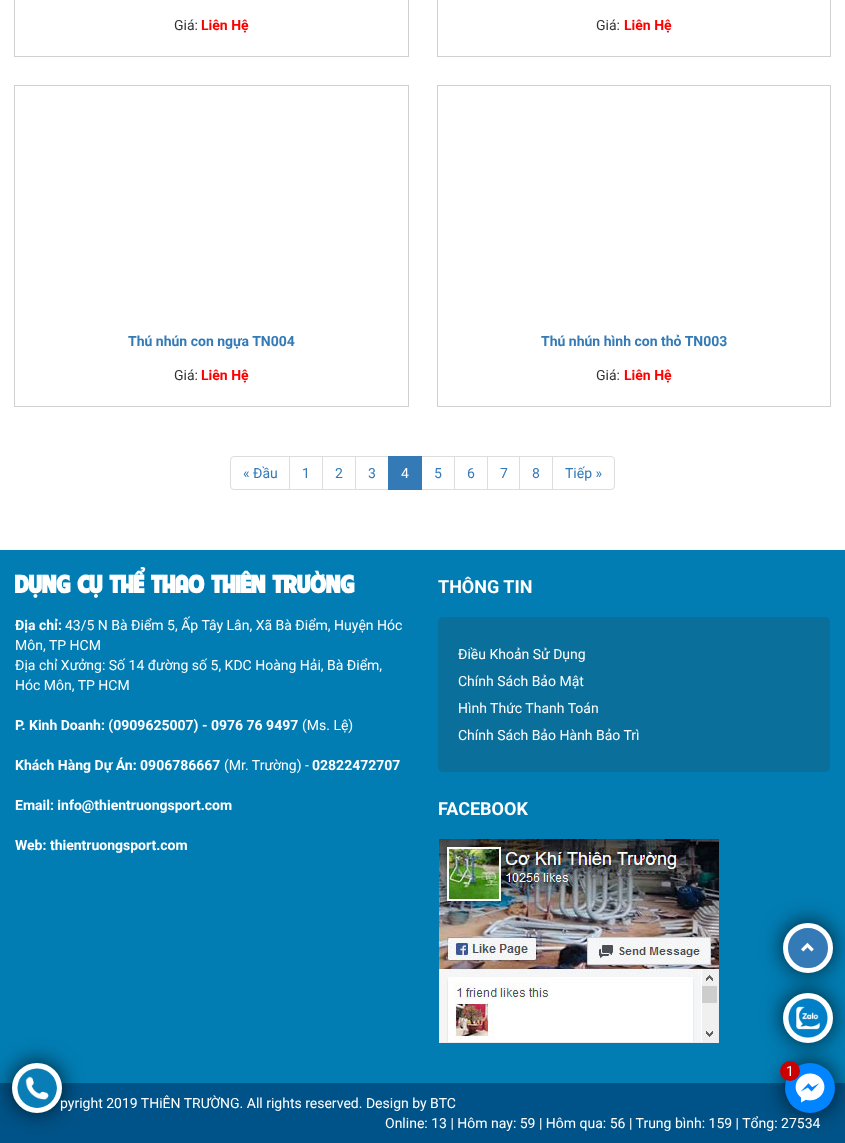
(async () => {
  const canvas = document.querySelector("canvas");
  canvas.width = 845;
  canvas.height = 1143;
  const ctx = canvas.getContext("2d");
  ctx.miterLimit = 4;
  ctx.fontKerning = "normal";
  async function loadImage(src) {
    const img = new Image();
    img.src = src;
    await img.decode();
    return img;
  }

  ctx.fillStyle = "#ffffff";
  ctx.fillRect(0, 0, 845, 1143);
  ctx.strokeStyle = "#d0d0d0";
  ctx.strokeRect(14.5, -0.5, 394, 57);
  ctx.strokeRect(437.5, -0.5, 393, 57);
  ctx.strokeRect(14.5, 85.5, 394, 321);
  ctx.strokeRect(437.5, 85.5, 393, 321);
  ctx.beginPath();
  ctx.roundRect(230.5, 456.5, 59, 33, [3.5, 0, 0, 3.5]);
  ctx.strokeStyle = "#dddddd";
  ctx.stroke();
  ctx.strokeRect(289.5, 456.5, 33, 33);
  ctx.strokeRect(322.5, 456.5, 33, 33);
  ctx.strokeRect(355.5, 456.5, 33, 33);
  ctx.strokeRect(421.5, 456.5, 33, 33);
  ctx.fillStyle = "#337ab7";
  ctx.fillRect(388, 456, 34, 34);
  ctx.strokeRect(454.5, 456.5, 33, 33);
  ctx.strokeRect(487.5, 456.5, 32, 33);
  ctx.strokeRect(519.5, 456.5, 33, 33);
  ctx.fillStyle = "#ffffff";
  ctx.beginPath();
  ctx.roundRect(552.5, 456.5, 62, 33, [0, 3.5, 3.5, 0]);
  ctx.fill();
  ctx.stroke();
  ctx.fillStyle = "#027db4";
  ctx.fillRect(0, 550, 845, 533);
  ctx.fillStyle = "#0b6f9b";
  ctx.beginPath();
  ctx.roundRect(438, 617, 392, 155, 5);
  ctx.fill();
  ctx.drawImage(await loadImage("img/1.png"), 438, 839, 281, 204);
  ctx.fillStyle = "rgba(0, 0, 0, 0.75)";
  ctx.filter = "blur(11px)";
  ctx.beginPath();
  ctx.roundRect(783, 922, 50, 50, 25);
  ctx.fill();
  ctx.filter = "none";
  ctx.fillStyle = "#337ab7";
  ctx.beginPath();
  ctx.arc(808, 948, 22.5, 0, Math.PI * 2);
  ctx.fill();
  ctx.strokeStyle = "#ffffff";
  ctx.lineWidth = 5;
  ctx.stroke();
  ctx.drawImage(await loadImage("img/2.png"), 801, 942, 13, 10);
  ctx.fillStyle = "#005388";
  ctx.fillRect(0, 1083, 845, 60);
  ctx.fillStyle = "rgba(0, 0, 0, 0.75)";
  ctx.filter = "blur(11px)";
  ctx.beginPath();
  ctx.roundRect(12, 1062, 50, 50, 25);
  ctx.fill();
  ctx.filter = "none";
  ctx.fillStyle = "#ffffff";
  ctx.beginPath();
  ctx.arc(37, 1088, 22.5, 0, Math.PI * 2);
  ctx.fill();
  ctx.stroke();
  ctx.drawImage(await loadImage("img/3.png"), 17, 1068, 40, 40);
  ctx.fillStyle = "rgba(0, 0, 0, 0.75)";
  ctx.filter = "blur(11px)";
  ctx.beginPath();
  ctx.roundRect(783, 992, 50, 50, 25);
  ctx.fill();
  ctx.filter = "none";
  ctx.fillStyle = "#ffffff";
  ctx.beginPath();
  ctx.arc(808, 1018, 22.5, 0, Math.PI * 2);
  ctx.fill();
  ctx.stroke();
  ctx.drawImage(await loadImage("img/4.png"), 788, 998, 40, 40);
  ctx.fillStyle = "rgba(0, 0, 0, 0.75)";
  ctx.filter = "blur(11px)";
  ctx.beginPath();
  ctx.roundRect(785, 1062, 50, 50, 25);
  ctx.fill();
  ctx.filter = "none";
  ctx.fillStyle = "#0084ff";
  ctx.beginPath();
  ctx.arc(810, 1088, 25, 0, Math.PI * 2);
  ctx.fill();
  ctx.drawImage(await loadImage("img/5.png"), 790, 1068, 40, 40);
  ctx.fillStyle = "#cc0000";
  ctx.beginPath();
  ctx.arc(790, 1071, 10, 0, Math.PI * 2);
  ctx.fill();
  ctx.font = "14px Roboto";
  ctx.fillStyle = "#333333";
  ctx.fillText("Giá:", 174, 30);
  ctx.font = "bold 14px Roboto";
  ctx.fillStyle = "#ff0000";
  ctx.fillText("Liên Hệ", 201, 30);
  ctx.font = "14px Roboto";
  ctx.fillStyle = "#333333";
  ctx.fillText("Giá:", 596, 30);
  ctx.font = "bold 14px Roboto";
  ctx.fillStyle = "#ff0000";
  ctx.fillText("Liên Hệ", 624, 30);
  ctx.fillStyle = "#337ab7";
  ctx.fillText("Thú nhún con ngựa TN004", 128, 346);
  ctx.font = "14px Roboto";
  ctx.fillStyle = "#333333";
  ctx.fillText("Giá:", 174, 380);
  ctx.font = "bold 14px Roboto";
  ctx.fillStyle = "#ff0000";
  ctx.fillText("Liên Hệ", 201, 380);
  ctx.fillStyle = "#337ab7";
  ctx.fillText("Thú nhún hình con thỏ TN003", 541, 346);
  ctx.font = "14px Roboto";
  ctx.fillStyle = "#333333";
  ctx.fillText("Giá:", 596, 380);
  ctx.font = "bold 14px Roboto";
  ctx.fillStyle = "#ff0000";
  ctx.fillText("Liên Hệ", 624, 380);
  ctx.font = "14px Roboto";
  ctx.fillStyle = "#337ab7";
  for (const [text, x, y] of [
    ["« Đầu", 243, 478],
    ["1", 302, 478],
    ["2", 335, 478],
    ["3", 368, 478],
  ]) {
    ctx.fillText(text, x, y);
  }
  ctx.fillStyle = "#ffffff";
  ctx.fillText("4", 401, 478);
  ctx.fillStyle = "#337ab7";
  for (const [text, x, y] of [
    ["5", 434, 478],
    ["6", 467, 478],
    ["7", 500, 478],
    ["8", 532, 478],
    ["Tiếp »", 565, 478],
  ]) {
    ctx.fillText(text, x, y);
  }
  ctx.font = "bold 22.4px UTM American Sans";
  ctx.fillStyle = "#ffffff";
  ctx.fillText("DỤNG CỤ THỂ THAO THIÊN TRƯỜNG", 15, 593);
  ctx.font = "bold 14px Roboto";
  ctx.fillText("Địa chỉ:", 15, 630);
  ctx.font = "14px Roboto";
  for (const [text, x, y] of [
    ["43/5 N Bà Điểm 5, Ấp Tây Lân, Xã Bà Điểm, Huyện Hóc", 65, 630],
    ["Môn, TP HCM", 15, 650],
    ["Địa chỉ Xưởng: Số 14 đường số 5, KDC Hoàng Hải, Bà Điểm,", 15, 670],
    ["Hóc Môn, TP HCM", 15, 690],
  ]) {
    ctx.fillText(text, x, y);
  }
  ctx.font = "bold 14px Roboto";
  ctx.fillText("P. Kinh Doanh: (0909625007) - 0976 76 9497", 15, 730);
  ctx.font = "14px Roboto";
  ctx.fillText("(Ms. Lệ)", 302, 730);
  ctx.font = "bold 14px Roboto";
  ctx.fillText("Khách Hàng Dự Án: 0906786667", 15, 770);
  ctx.font = "14px Roboto";
  ctx.fillText("(Mr. Trường) -", 224, 770);
  ctx.font = "bold 14px Roboto";
  for (const [text, x, y] of [
    ["02822472707", 312, 770],
    ["Email: info@thientruongsport.com", 15, 810],
    ["Web: thientruongsport.com", 15, 850],
  ]) {
    ctx.fillText(text, x, y);
  }
  ctx.font = "bold 18px Roboto";
  ctx.fillText("THÔNG TIN", 438, 593);
  ctx.font = "14px Roboto";
  for (const [text, x, y] of [
    ["Điều Khoản Sử Dụng", 458, 659],
    ["Chính Sách Bảo Mật", 458, 686],
    ["Hình Thức Thanh Toán", 458, 713],
    ["Chính Sách Bảo Hành Bảo Trì", 458, 740],
  ]) {
    ctx.fillText(text, x, y);
  }
  ctx.font = "bold 18px Roboto";
  ctx.fillText("FACEBOOK", 438, 815);
  ctx.font = "14px Roboto";
  for (const [text, x, y] of [
    ["1", 786, 1076],
    ["pyright 2019 THiÊN TRƯỜNG. All rights reserved. Design by BTC", 60, 1108],
    ["Online: 13 | Hôm nay: 59 | Hôm qua: 56 | Trung bình: 159 | Tổng: 27534", 385, 1128],
  ]) {
    ctx.fillText(text, x, y);
  }
})();
